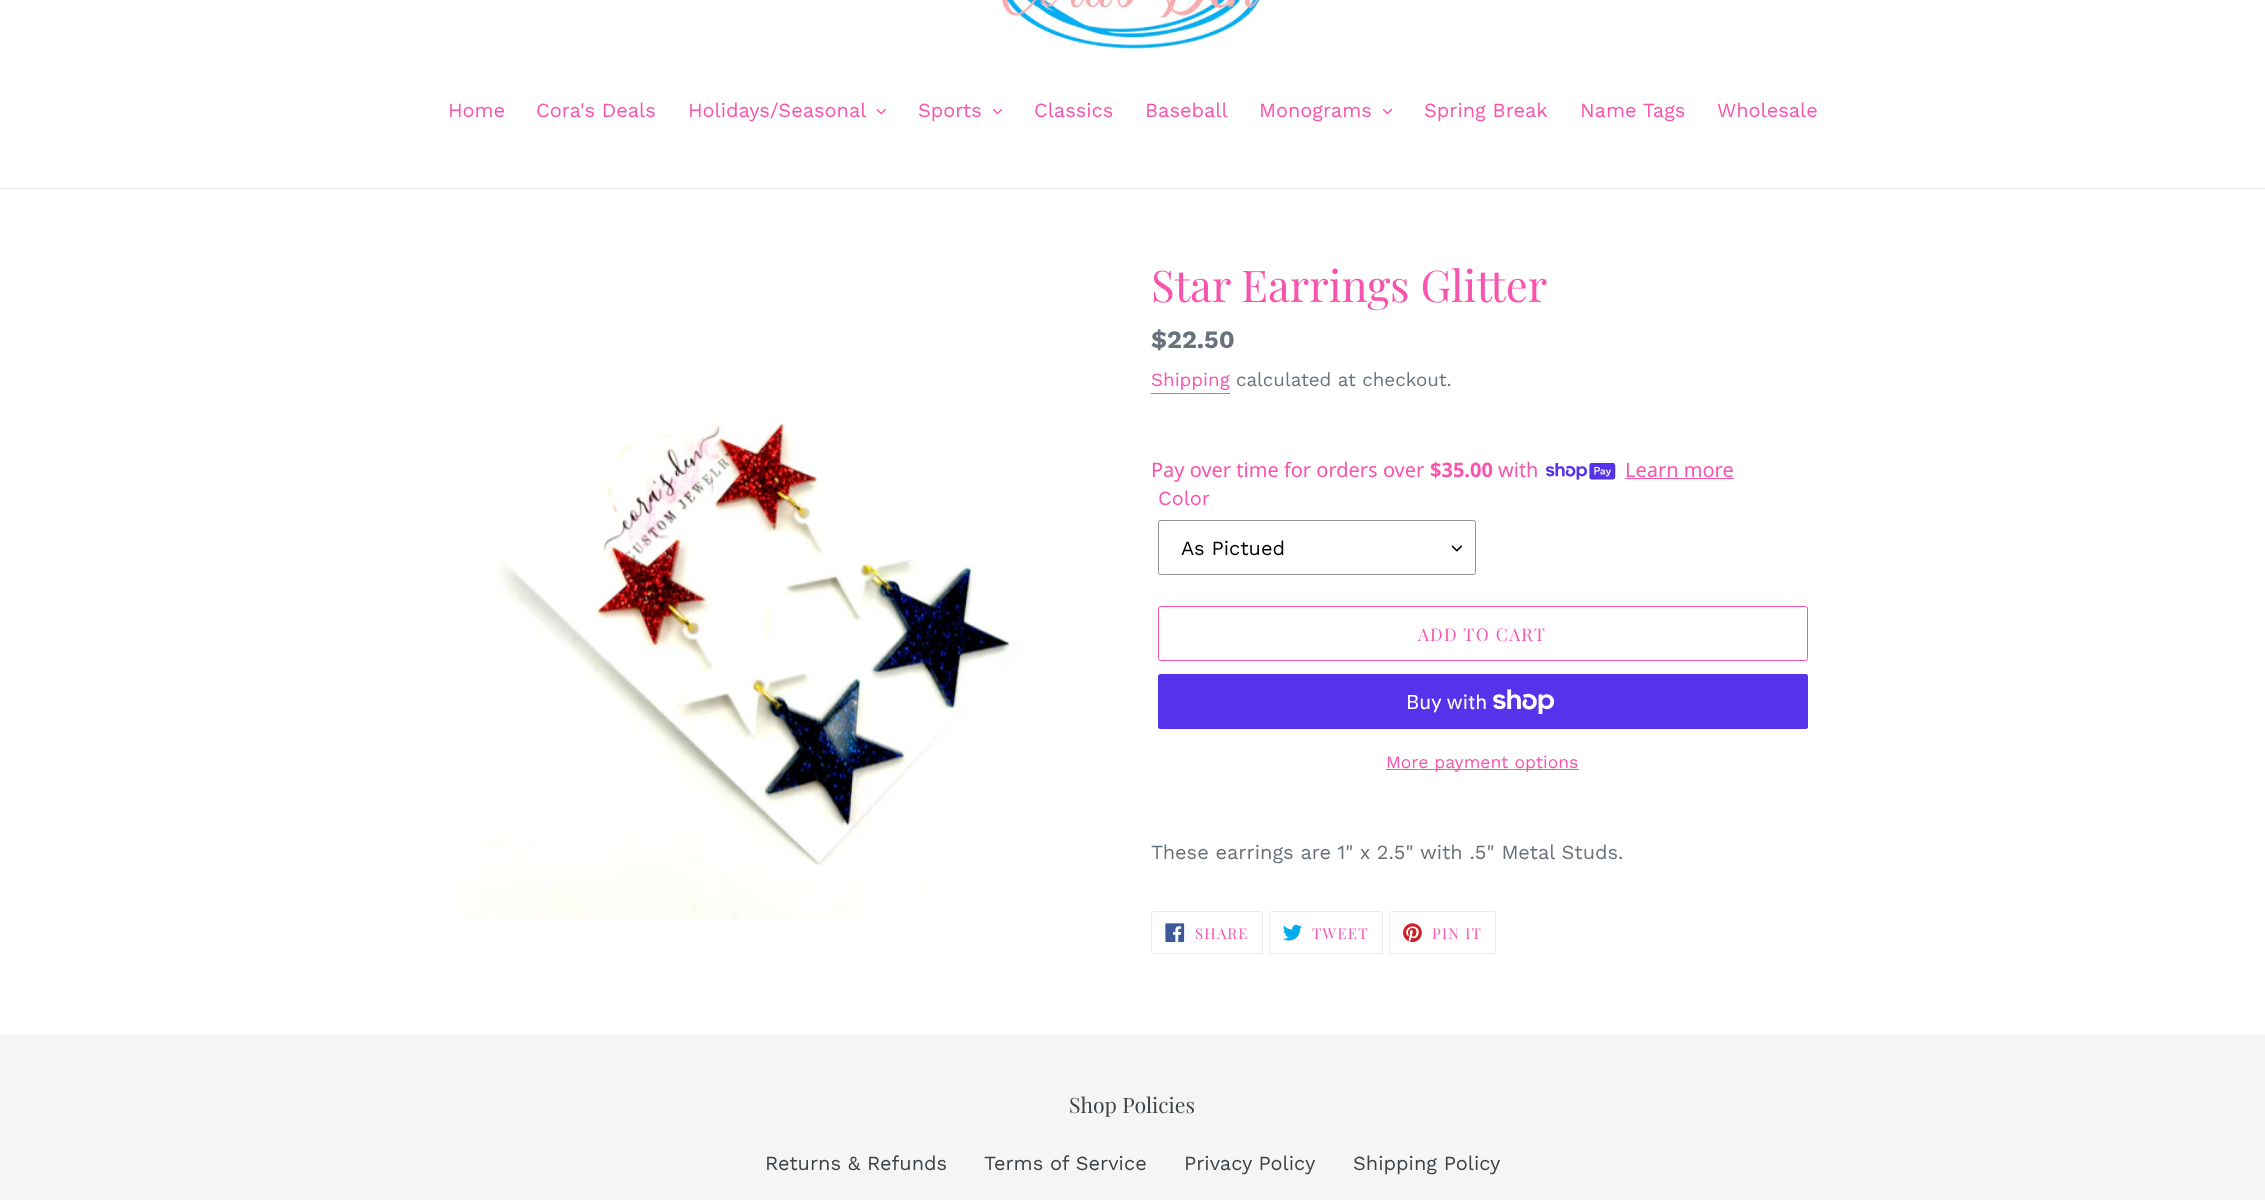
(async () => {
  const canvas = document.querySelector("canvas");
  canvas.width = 2265;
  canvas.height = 1200;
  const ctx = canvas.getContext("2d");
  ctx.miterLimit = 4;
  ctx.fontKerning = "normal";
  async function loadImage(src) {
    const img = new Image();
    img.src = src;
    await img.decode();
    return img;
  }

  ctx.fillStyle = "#ffffff";
  ctx.fillRect(0, 0, 2265, 1200);
  ctx.drawImage(await loadImage("img/1.png"), 997, 0, 270, 50);
  ctx.fillStyle = "#e8e9eb";
  ctx.fillRect(0, 188, 2265, 1);
  ctx.drawImage(await loadImage("img/2.png"), 876, 108, 10, 7);
  ctx.drawImage(await loadImage("img/3.png"), 993, 108, 10, 7);
  ctx.drawImage(await loadImage("img/3.png"), 1383, 108, 10, 7);
  ctx.drawImage(await loadImage("img/4.png"), 459, 420, 562, 500);
  ctx.fillStyle = "#f854ae";
  ctx.fillRect(1151, 393, 79, 1);
  ctx.drawImage(await loadImage("img/5.png"), 1546, 463, 70, 17);
  ctx.fillRect(1625, 478, 109, 1);
  ctx.drawImage(await loadImage("img/6.png"), 1451, 545, 12, 7);
  ctx.beginPath();
  ctx.roundRect(1158.5, 520.5, 317, 54, 2);
  ctx.strokeStyle = "#949494";
  ctx.stroke();
  ctx.beginPath();
  ctx.roundRect(1158.5, 606.5, 649, 54, 2);
  ctx.strokeStyle = "#f854ae";
  ctx.stroke();
  ctx.fillStyle = "#5433eb";
  ctx.beginPath();
  ctx.roundRect(1158, 674, 650, 55, 2.5);
  ctx.fill();
  ctx.drawImage(await loadImage("img/7.png"), 1493, 689, 62, 25);
  ctx.fillStyle = "#f854ae";
  ctx.fillRect(1386, 769, 193, 1);
  ctx.beginPath();
  ctx.roundRect(1151.5, 911.5, 111, 42, 2);
  ctx.strokeStyle = "#e8e9eb";
  ctx.stroke();
  ctx.drawImage(await loadImage("img/8.png"), 1165, 923, 20, 20);
  ctx.beginPath();
  ctx.roundRect(1269.5, 911.5, 113, 42, 2);
  ctx.stroke();
  ctx.drawImage(await loadImage("img/9.png"), 1283, 924, 19, 17);
  ctx.beginPath();
  ctx.roundRect(1389.5, 911.5, 106, 42, 2);
  ctx.stroke();
  ctx.drawImage(await loadImage("img/10.png"), 1403, 923, 19, 20);
  ctx.fillStyle = "#f5f5f5";
  ctx.fillRect(0, 1035, 2265, 165);
  ctx.font = "20px Work Sans";
  ctx.fillStyle = "#f854ae";
  for (const [text, x, y] of [
    ["Home", 448, 117],
    ["Cora's Deals", 536, 117],
    ["Holidays/Seasonal", 688, 117],
    ["Sports", 918, 117],
    ["Classics", 1034, 117],
    ["Baseball", 1145, 117],
    ["Monograms", 1259, 117],
    ["Spring Break", 1424, 117],
    ["Name Tags", 1580, 117],
    ["Wholesale", 1717, 117],
  ]) {
    ctx.fillText(text, x, y);
  }
  ctx.font = "43.75px Playfair Display";
  ctx.fillText("Star Earrings Glitter", 1151, 302);
  ctx.font = "bold 25px Work Sans";
  ctx.fillStyle = "#69727b";
  ctx.fillText("$22.50", 1151, 348);
  ctx.font = "18.75px Work Sans";
  ctx.fillStyle = "#f854ae";
  ctx.fillText("Shipping", 1151, 386);
  ctx.fillStyle = "#69727b";
  ctx.fillText("calculated at checkout.", 1236, 386);
  ctx.font = "20px Noto Sans";
  ctx.fillStyle = "#f854ae";
  ctx.fillText("Pay over time for orders over", 1151, 477);
  ctx.font = "bold 20px Noto Sans";
  ctx.fillText("$35.00", 1430, 477);
  ctx.font = "20px Noto Sans";
  ctx.fillText("with", 1498, 477);
  ctx.fillText("Learn more", 1625, 477);
  ctx.font = "20px Work Sans";
  ctx.fillText("Color", 1158, 505);
  ctx.fillStyle = "#000000";
  ctx.fillText("As Pictued", 1181, 555);
  ctx.letterSpacing = "1.4px";
  ctx.font = "17.5px Playfair Display";
  ctx.fillStyle = "#f854ae";
  ctx.fillText("ADD TO CART", 1418, 641);
  ctx.letterSpacing = "0px";
  ctx.font = "20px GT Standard";
  ctx.fillStyle = "#ffffff";
  ctx.fillText("Buy with", 1406, 709);
  ctx.font = "17.5px Work Sans";
  ctx.fillStyle = "#f854ae";
  ctx.fillText("More payment options", 1386, 768);
  ctx.font = "20px Work Sans";
  ctx.fillStyle = "#69727b";
  ctx.fillText("These earrings are 1\" x 2.5\" with .5\" Metal Studs.", 1151, 859);
  ctx.letterSpacing = "1.25px";
  ctx.font = "15px Playfair Display";
  ctx.fillStyle = "#f854ae";
  for (const [text, x, y] of [
    ["SHARE", 1195, 939],
    ["TWEET", 1312, 939],
    ["PIN IT", 1432, 939],
  ]) {
    ctx.fillText(text, x, y);
  }
  ctx.letterSpacing = "0px";
  ctx.font = "21.25px Playfair Display";
  ctx.fillStyle = "#3d4246";
  ctx.fillText("Shop Policies", 1069, 1113);
  ctx.font = "20px Work Sans";
  for (const [text, x, y] of [
    ["Returns & Refunds", 765, 1170],
    ["Terms of Service", 984, 1170],
    ["Privacy Policy", 1184, 1170],
    ["Shipping Policy", 1353, 1170],
  ]) {
    ctx.fillText(text, x, y);
  }
})();
